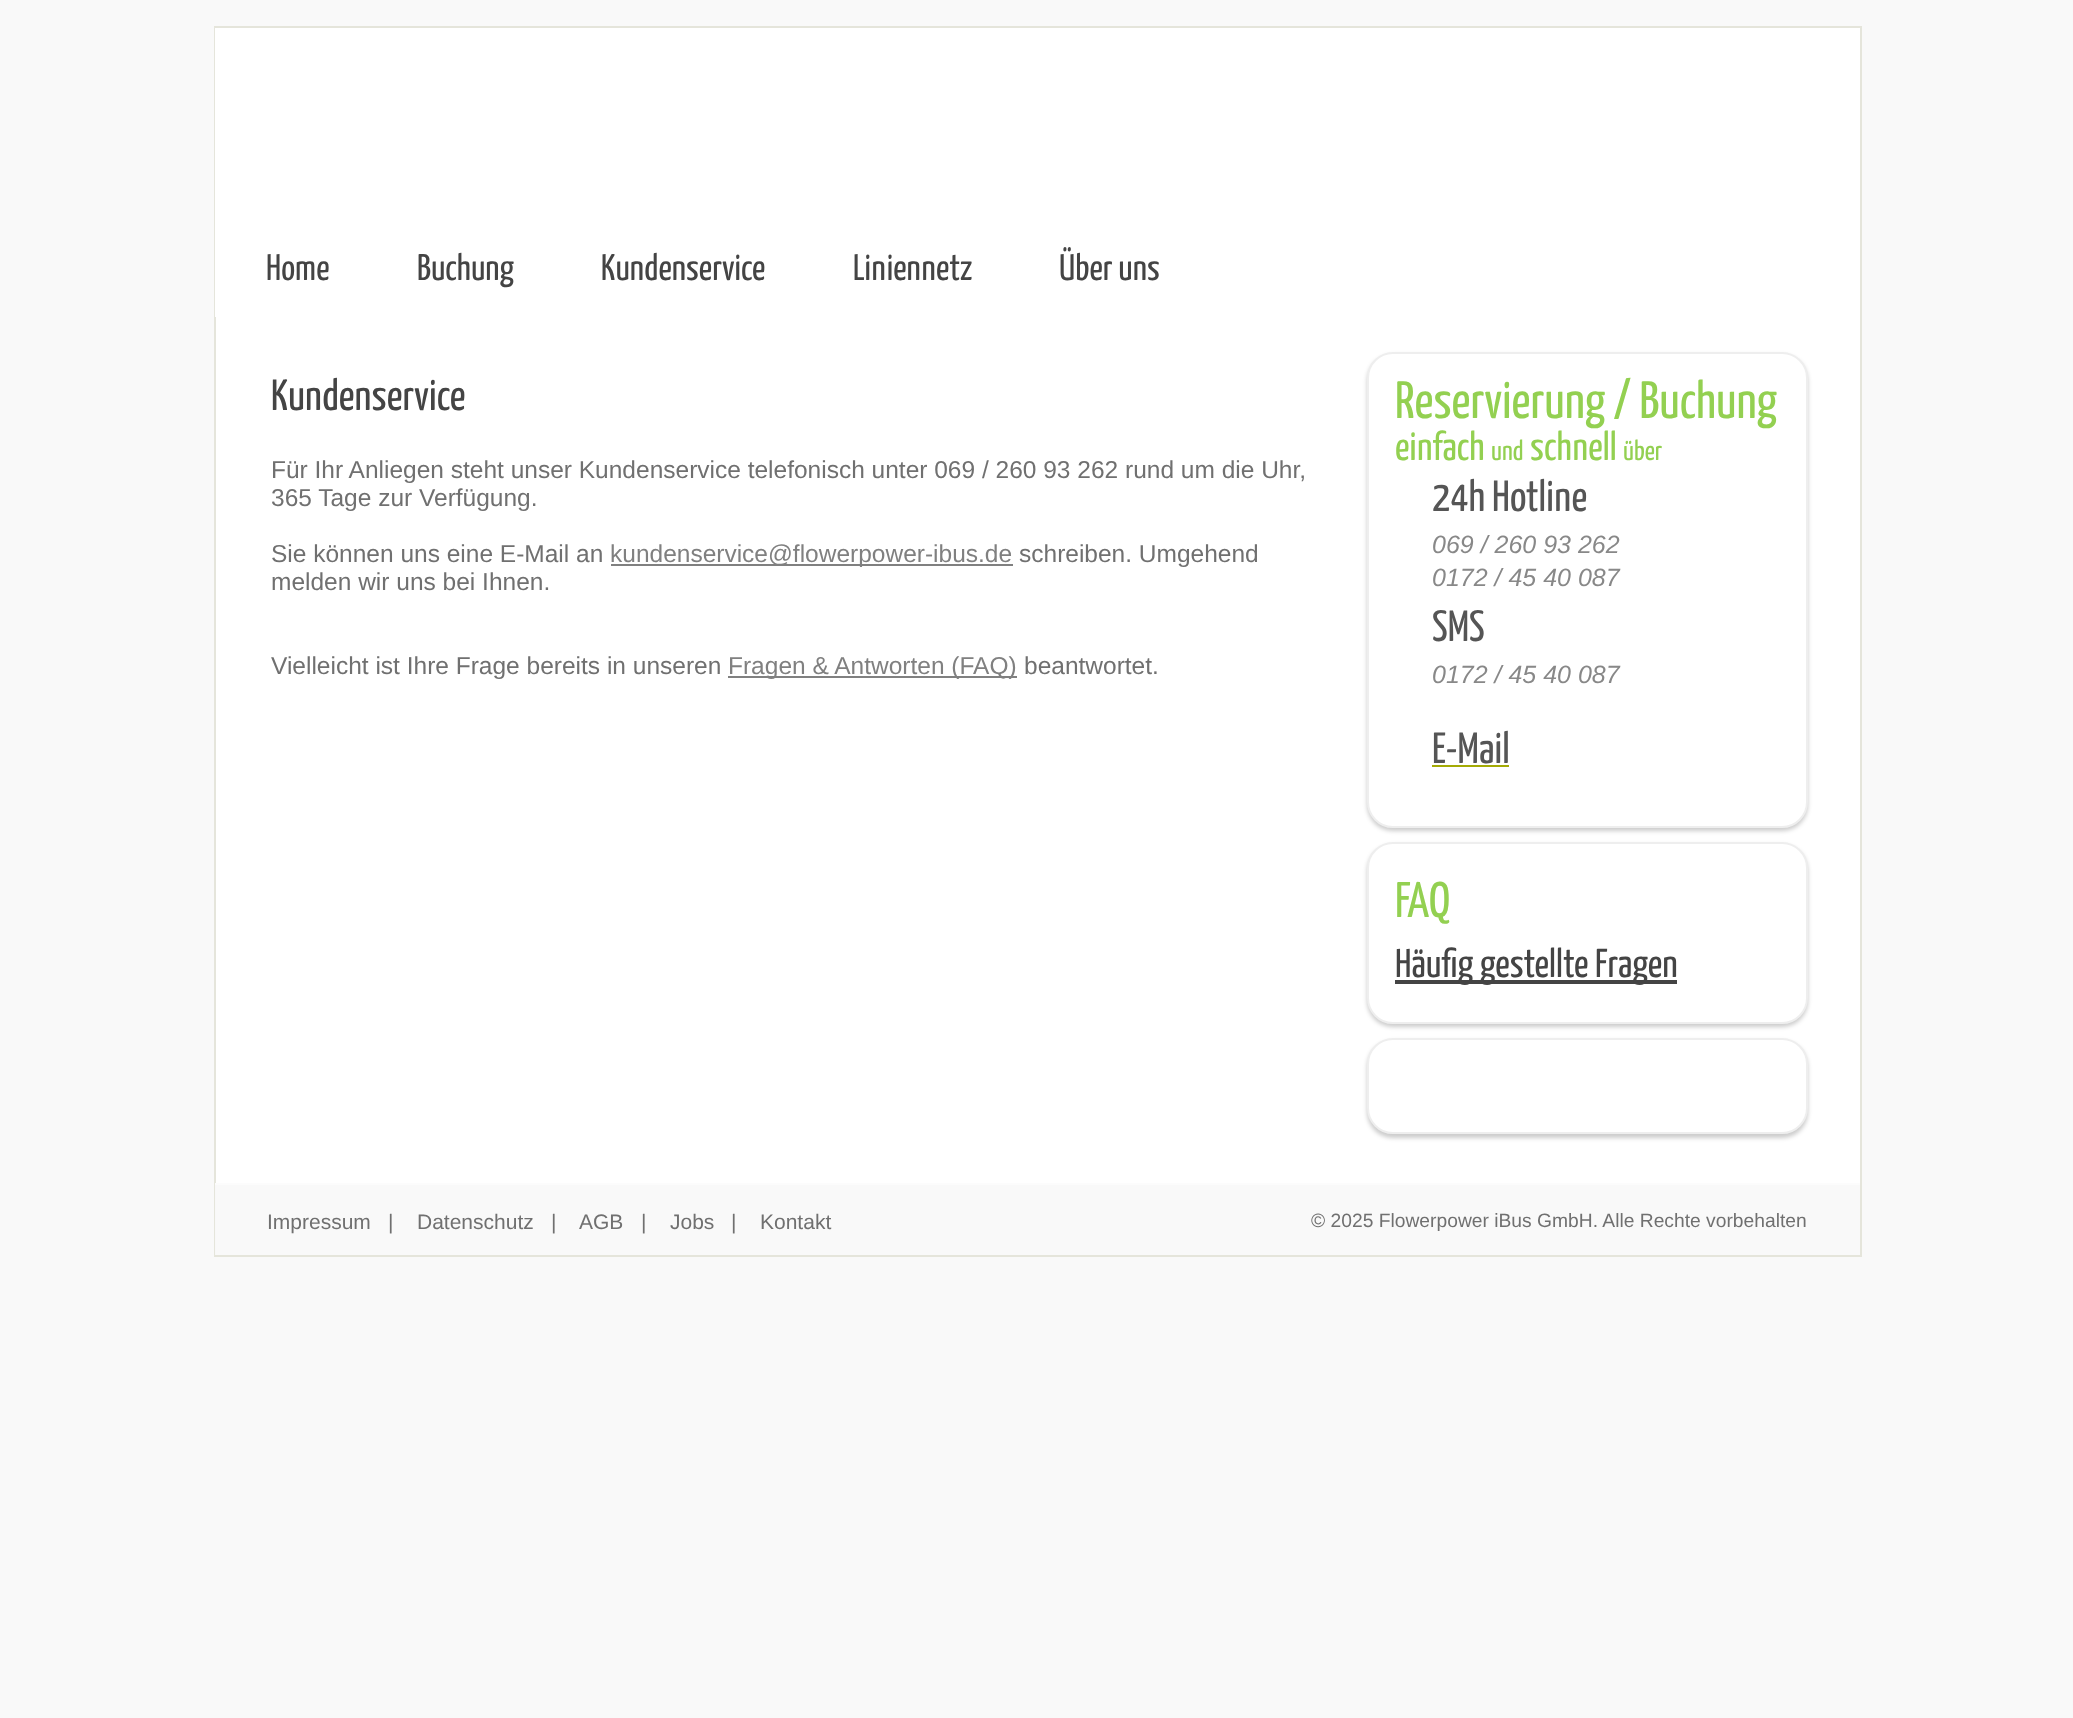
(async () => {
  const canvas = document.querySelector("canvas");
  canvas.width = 2073;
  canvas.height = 1718;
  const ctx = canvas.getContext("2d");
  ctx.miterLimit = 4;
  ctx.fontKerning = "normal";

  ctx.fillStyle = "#f9f9f9";
  ctx.fillRect(0, 0, 2073, 1718);
  ctx.fillStyle = "#ffffff";
  ctx.fillRect(216, 317, 1644, 866);
  ctx.strokeStyle = "#e5e5db";
  ctx.lineWidth = 2;
  ctx.strokeRect(215, 27, 1646, 1229);
  for (const [x, y, w, h, color] of [
    [215, 28, 1645, 289, "#ffffff"],
    [611, 564, 402, 2, "#808080"],
    [728, 676, 289, 2, "#808080"],
  ]) {
    ctx.fillStyle = color;
    ctx.fillRect(x, y, w, h);
  }
  ctx.fillStyle = "rgba(0, 0, 0, 0.2)";
  ctx.filter = "blur(2px)";
  ctx.beginPath();
  ctx.roundRect(1367, 355, 441, 476, 26);
  ctx.fill();
  ctx.filter = "none";
  ctx.fillStyle = "#ffffff";
  ctx.beginPath();
  ctx.roundRect(1368, 353, 439, 474, 25);
  ctx.fill();
  ctx.strokeStyle = "#eeeeee";
  ctx.stroke();
  ctx.fillStyle = "#a4aa04";
  ctx.fillRect(1432, 765, 77, 2);
  ctx.fillStyle = "rgba(0, 0, 0, 0.2)";
  ctx.filter = "blur(2px)";
  ctx.beginPath();
  ctx.roundRect(1367, 845, 441, 182, 26);
  ctx.fill();
  ctx.filter = "none";
  ctx.fillStyle = "#ffffff";
  ctx.beginPath();
  ctx.roundRect(1368, 843, 439, 180, 25);
  ctx.fill();
  ctx.stroke();
  ctx.fillStyle = "#444444";
  ctx.fillRect(1395, 980, 282, 4);
  ctx.fillStyle = "rgba(0, 0, 0, 0.2)";
  ctx.filter = "blur(2px)";
  ctx.beginPath();
  ctx.roundRect(1367, 1041, 441, 97, 26);
  ctx.fill();
  ctx.filter = "none";
  ctx.fillStyle = "#ffffff";
  ctx.beginPath();
  ctx.roundRect(1368, 1039, 439, 94, 25);
  ctx.fill();
  ctx.stroke();
  ctx.fillStyle = "#f8f8f8";
  ctx.fillRect(215, 1185, 1, 70);
  ctx.fillStyle = "#fcfcfc";
  ctx.fillRect(215, 1183, 1645, 2);
  ctx.font = "37px Yanone Kaffeesatz";
  ctx.fillStyle = "#444444";
  for (const [text, x, y] of [
    ["Home", 266, 280],
    ["Buchung", 417, 280],
    ["Kundenservice", 601, 280],
    ["Liniennetz", 853, 280],
    ["Über uns", 1059, 280],
  ]) {
    ctx.fillText(text, x, y);
  }
  ctx.font = "43.75px Yanone Kaffeesatz";
  ctx.fillText("Kundenservice", 271, 410);
  ctx.font = "24.5px Liberation Sans";
  ctx.fillStyle = "#707070";
  for (const [text, x, y] of [
    ["Für Ihr Anliegen steht unser Kundenservice telefonisch unter 069 / 260 93 262 rund um die Uhr,", 271, 478],
    ["365 Tage zur Verfügung.", 271, 506],
    ["Sie können uns eine E-Mail an", 271, 562],
  ]) {
    ctx.fillText(text, x, y);
  }
  ctx.fillStyle = "#808080";
  ctx.fillText("kundenservice@flowerpower-ibus.de", 610, 562);
  ctx.fillStyle = "#707070";
  for (const [text, x, y] of [
    ["schreiben. Umgehend", 1019, 562],
    ["melden wir uns bei Ihnen.", 271, 590],
    ["Vielleicht ist Ihre Frage bereits in unseren", 271, 674],
  ]) {
    ctx.fillText(text, x, y);
  }
  ctx.fillStyle = "#808080";
  ctx.fillText("Fragen & Antworten (FAQ)", 728, 674);
  ctx.fillStyle = "#707070";
  ctx.fillText("beantwortet.", 1024, 674);
  ctx.font = "52.5px Yanone Kaffeesatz";
  ctx.fillStyle = "#93d051";
  ctx.fillText("Reservierung / Buchung", 1395, 418);
  ctx.font = "40.25px Yanone Kaffeesatz";
  ctx.fillText("einfach", 1395, 460);
  ctx.font = "28px Yanone Kaffeesatz";
  ctx.fillText("und", 1491, 460);
  ctx.font = "40.25px Yanone Kaffeesatz";
  ctx.fillText("schnell", 1530, 460);
  ctx.font = "28px Yanone Kaffeesatz";
  ctx.fillText("über", 1623, 460);
  ctx.font = "43.75px Yanone Kaffeesatz";
  ctx.fillStyle = "#555555";
  ctx.fillText("24h Hotline", 1432, 511);
  ctx.font = "italic 25px Liberation Sans";
  ctx.fillStyle = "#888888";
  ctx.fillText("069 / 260 93 262", 1432, 553);
  ctx.fillText("0172 / 45 40 087", 1432, 586);
  ctx.font = "43.75px Yanone Kaffeesatz";
  ctx.fillStyle = "#555555";
  ctx.fillText("SMS", 1432, 641);
  ctx.font = "italic 25px Liberation Sans";
  ctx.fillStyle = "#888888";
  ctx.fillText("0172 / 45 40 087", 1432, 683);
  ctx.font = "43.75px Yanone Kaffeesatz";
  ctx.fillStyle = "#555555";
  ctx.fillText("E-Mail", 1432, 763);
  ctx.font = "50px Yanone Kaffeesatz";
  ctx.fillStyle = "#93d051";
  ctx.fillText("FAQ", 1395, 917);
  ctx.font = "40.25px Yanone Kaffeesatz";
  ctx.fillStyle = "#444444";
  ctx.fillText("Häufig gestellte Fragen", 1395, 977);
  ctx.font = "21px Liberation Sans";
  ctx.fillStyle = "#707070";
  for (const [text, x, y] of [
    ["Impressum", 267, 1229],
    ["|", 388, 1229],
    ["Datenschutz", 417, 1229],
    ["|", 551, 1229],
    ["AGB", 579, 1229],
    ["|", 641, 1229],
    ["Jobs", 670, 1229],
    ["|", 731, 1229],
    ["Kontakt", 760, 1229],
  ]) {
    ctx.fillText(text, x, y);
  }
  ctx.font = "19.25px Liberation Sans";
  ctx.fillText("© 2025 Flowerpower iBus GmbH. Alle Rechte vorbehalten", 1311, 1227);
})();
